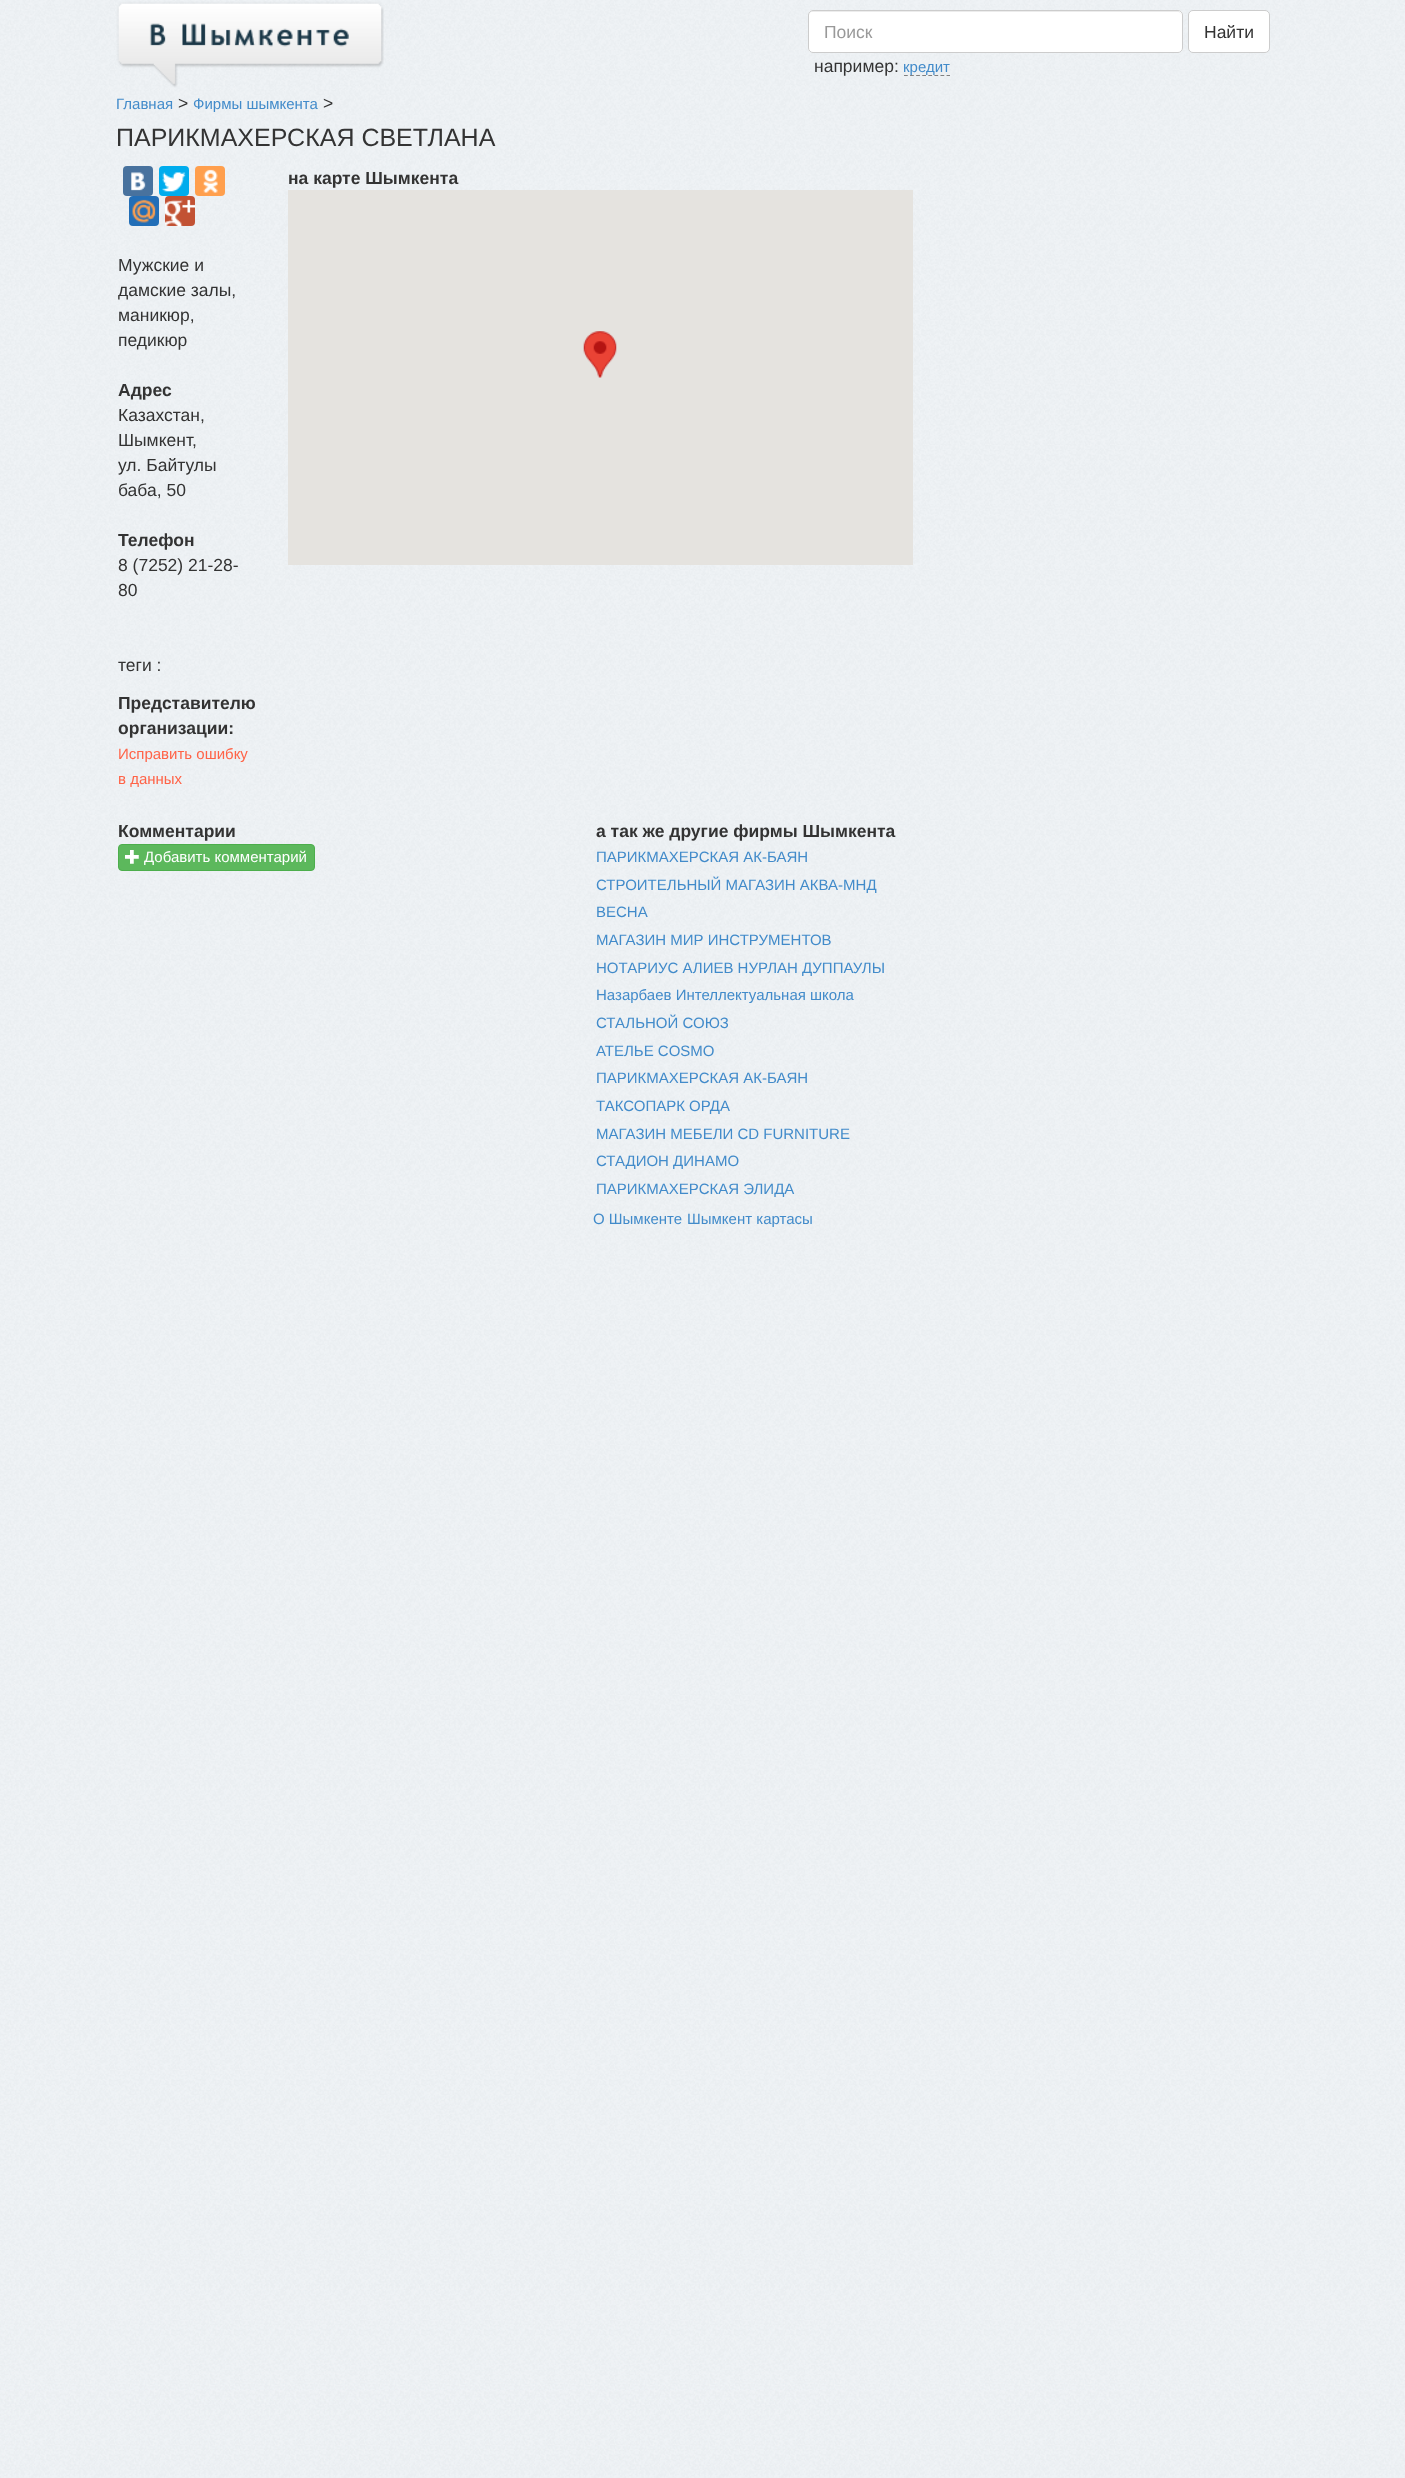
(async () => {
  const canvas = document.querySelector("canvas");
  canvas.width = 1405;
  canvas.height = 2478;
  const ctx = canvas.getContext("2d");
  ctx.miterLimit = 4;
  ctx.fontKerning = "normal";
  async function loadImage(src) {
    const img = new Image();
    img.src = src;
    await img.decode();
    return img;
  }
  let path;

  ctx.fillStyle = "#ffffff";
  ctx.fillRect(0, 0, 1405, 2478);
  ctx.drawImage(await loadImage("img/1.png"), 0, 0, 1405, 2478);
  ctx.drawImage(await loadImage("img/2.png"), 116, 1, 268, 87);
  ctx.beginPath();
  ctx.roundRect(808, 10, 375, 43, 5);
  ctx.fill();
  ctx.fillStyle = "#ececec";
  path = new Path2D("M812 12H1178C1180 12 1181 14 1181 16C1181 13 1180 11 1177 11H813C810 11 809 13 809 16C809 14 810 12 812 12Z");
  ctx.fill(path);
  ctx.beginPath();
  ctx.roundRect(808.5, 10.5, 374, 42, 4.5);
  ctx.strokeStyle = "#cccccc";
  ctx.stroke();
  ctx.fillStyle = "#ffffff";
  ctx.beginPath();
  ctx.roundRect(1188.5, 10.5, 81, 42, 4.5);
  ctx.fill();
  ctx.stroke();
  path = new Path2D("M904 75.5H950");
  ctx.strokeStyle = "#808080";
  ctx.lineWidth = 1.2;
  ctx.setLineDash([3.75, 2.33]);
  ctx.stroke(path);
  ctx.fillStyle = "#e5e3df";
  ctx.fillRect(288, 190, 625, 375);
  ctx.drawImage(await loadImage("img/3.png"), 583, 331, 34, 47);
  ctx.fillStyle = "#48729e";
  ctx.beginPath();
  ctx.roundRect(123, 166, 30, 30, 4);
  ctx.fill();
  ctx.drawImage(await loadImage("img/4.png"), 131, 172, 15, 19);
  ctx.fillStyle = "#00aced";
  ctx.beginPath();
  ctx.roundRect(159, 166, 30, 30, 4);
  ctx.fill();
  ctx.drawImage(await loadImage("img/5.png"), 162, 172, 24, 20);
  ctx.fillStyle = "#ff9f4d";
  ctx.beginPath();
  ctx.roundRect(195, 166, 30, 30, 4);
  ctx.fill();
  ctx.drawImage(await loadImage("img/6.png"), 203, 169, 15, 24);
  ctx.fillStyle = "#226eb7";
  ctx.beginPath();
  ctx.roundRect(129, 196, 30, 30, 4);
  ctx.fill();
  ctx.drawImage(await loadImage("img/7.png"), 132, 199, 24, 24);
  ctx.fillStyle = "#c25234";
  ctx.beginPath();
  ctx.roundRect(165, 196, 30, 30, 4);
  ctx.fill();
  ctx.drawImage(await loadImage("img/8.png"), 165, 199, 30, 28);
  ctx.fillStyle = "#5cb85c";
  ctx.beginPath();
  ctx.roundRect(118.5, 844.5, 196, 26, 3.5);
  ctx.fill();
  ctx.strokeStyle = "#4cae4c";
  ctx.lineWidth = 1;
  ctx.setLineDash([]);
  ctx.stroke();
  ctx.drawImage(await loadImage("img/9.png"), 125, 850, 14, 14);
  ctx.font = "17.5px Liberation Sans";
  ctx.fillStyle = "#999999";
  ctx.fillText("Поиск", 824, 38);
  ctx.fillStyle = "#333333";
  ctx.fillText("Найти", 1204, 38);
  ctx.fillText("например:", 814, 72);
  ctx.font = "15px Liberation Sans";
  ctx.fillStyle = "#428bca";
  ctx.fillText("кредит", 903, 72);
  ctx.fillText("Главная", 116, 109);
  ctx.font = "17.5px Liberation Sans";
  ctx.fillStyle = "#333333";
  ctx.fillText(">", 178, 109);
  ctx.font = "15px Liberation Sans";
  ctx.fillStyle = "#428bca";
  ctx.fillText("Фирмы шымкента", 193, 109);
  ctx.font = "17.5px Liberation Sans";
  ctx.fillStyle = "#333333";
  ctx.fillText(">", 323, 109);
  ctx.font = "25px Liberation Sans";
  ctx.fillText("ПАРИКМАХЕРСКАЯ СВЕТЛАНА", 116, 146);
  ctx.font = "bold 17.5px Liberation Sans";
  ctx.fillText("на карте Шымкента", 288, 184);
  ctx.font = "17.5px Liberation Sans";
  for (const [text, x, y] of [
    ["Мужские и", 118, 271],
    ["дамские залы,", 118, 296],
    ["маникюр,", 118, 321],
    ["педикюр", 118, 346],
  ]) {
    ctx.fillText(text, x, y);
  }
  ctx.font = "bold 17.5px Liberation Sans";
  ctx.fillText("Адрес", 118, 396);
  ctx.font = "17.5px Liberation Sans";
  for (const [text, x, y] of [
    ["Казахстан,", 118, 421],
    ["Шымкент,", 118, 446],
    ["ул. Байтулы", 118, 471],
    ["баба, 50", 118, 496],
  ]) {
    ctx.fillText(text, x, y);
  }
  ctx.font = "bold 17.5px Liberation Sans";
  ctx.fillText("Телефон", 118, 546);
  ctx.font = "17.5px Liberation Sans";
  for (const [text, x, y] of [
    ["8 (7252) 21-28-", 118, 571],
    ["80", 118, 596],
    ["теги :", 118, 671],
  ]) {
    ctx.fillText(text, x, y);
  }
  ctx.font = "bold 17.5px Liberation Sans";
  ctx.fillText("Представителю", 118, 709);
  ctx.fillText("организации:", 118, 734);
  ctx.font = "15px Liberation Sans";
  ctx.fillStyle = "#ff6347";
  ctx.fillText("Исправить ошибку", 118, 759);
  ctx.fillText("в данных", 118, 784);
  ctx.font = "bold 17.5px Liberation Sans";
  ctx.fillStyle = "#333333";
  ctx.fillText("Комментарии", 118, 837);
  ctx.font = "15px Liberation Sans";
  ctx.fillStyle = "#ffffff";
  ctx.fillText("Добавить комментарий", 144, 862);
  ctx.font = "bold 17.5px Liberation Sans";
  ctx.fillStyle = "#333333";
  ctx.fillText("а так же другие фирмы Шымкента", 596, 837);
  ctx.font = "15px Liberation Sans";
  ctx.fillStyle = "#428bca";
  for (const [text, x, y] of [
    ["ПАРИКМАХЕРСКАЯ АК-БАЯН", 596, 862],
    ["СТРОИТЕЛЬНЫЙ МАГАЗИН АКВА-МНД", 596, 890],
    ["ВЕСНА", 596, 917],
    ["МАГАЗИН МИР ИНСТРУМЕНТОВ", 596, 945],
    ["НОТАРИУС АЛИЕВ НУРЛАН ДУППАУЛЫ", 596, 973],
    ["Назарбаев Интеллектуальная школа", 596, 1000],
    ["СТАЛЬНОЙ СОЮЗ", 596, 1028],
    ["АТЕЛЬЕ COSMO", 596, 1056],
    ["ПАРИКМАХЕРСКАЯ АК-БАЯН", 596, 1083],
    ["ТАКСОПАРК ОРДА", 596, 1111],
    ["МАГАЗИН МЕБЕЛИ CD FURNITURE", 596, 1139],
    ["СТАДИОН ДИНАМО", 596, 1166],
    ["ПАРИКМАХЕРСКАЯ ЭЛИДА", 596, 1194],
    ["О Шымкенте", 593, 1224],
    ["Шымкент картасы", 687, 1224],
  ]) {
    ctx.fillText(text, x, y);
  }
})();
